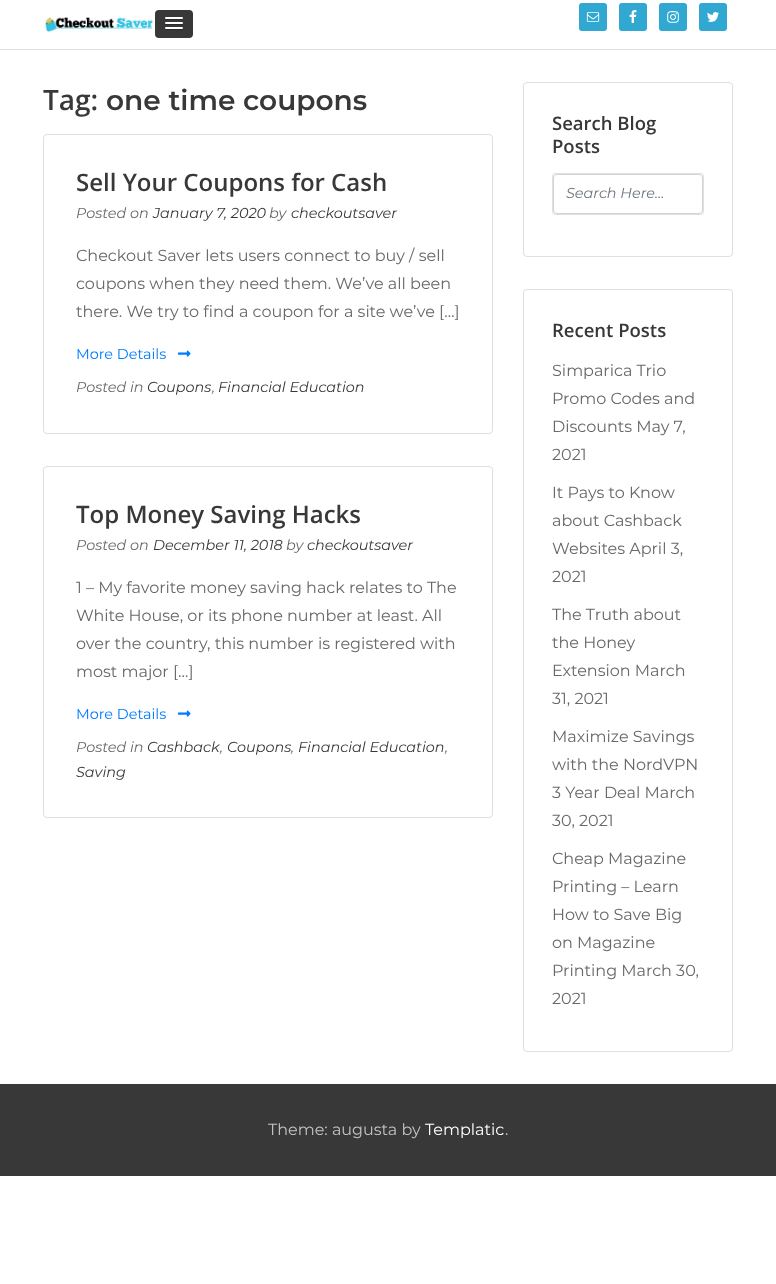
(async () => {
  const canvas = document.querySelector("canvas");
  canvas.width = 776;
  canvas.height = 1284;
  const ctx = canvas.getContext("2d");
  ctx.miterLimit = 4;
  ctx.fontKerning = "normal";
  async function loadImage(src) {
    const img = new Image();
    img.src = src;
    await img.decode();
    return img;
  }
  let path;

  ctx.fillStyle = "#ffffff";
  ctx.fillRect(0, 0, 776, 1284);
  ctx.fillStyle = "#dfdfdf";
  ctx.fillRect(0, 49, 776, 1);
  ctx.drawImage(await loadImage("img/1.png"), 45, 17, 108, 15);
  ctx.fillStyle = "#383838";
  ctx.beginPath();
  ctx.roundRect(155, 10, 38, 28, 4);
  ctx.fill();
  ctx.fillStyle = "#2a2a2a";
  path = new Path2D("M165 18.5C164 20.5 168.5 20 168.5 20H179.5C179.5 20 184 20.5 183 18.5C182 19.5 175.5 19 174 19C172.5 19 166 19.5 165 18.5Z");
  ctx.fill(path);
  ctx.fillStyle = "#ffffff";
  ctx.beginPath();
  ctx.roundRect(165, 17, 18, 2, 1);
  ctx.fill();
  ctx.fillStyle = "#2a2a2a";
  path = new Path2D("M165 23.5C164 25.5 168.5 25 168.5 25H179.5C179.5 25 184 25.5 183 23.5C182 24.5 175.5 24 174 24C172.5 24 166 24.5 165 23.5Z");
  ctx.fill(path);
  ctx.fillStyle = "#ffffff";
  ctx.beginPath();
  ctx.roundRect(165, 22, 18, 2, 1);
  ctx.fill();
  ctx.fillStyle = "#2a2a2a";
  path = new Path2D("M165 28.5C164 30.5 168.5 30 168.5 30H179.5C179.5 30 184 30.5 183 28.5C182 29.5 175.5 29 174 29C172.5 29 166 29.5 165 28.5Z");
  ctx.fill(path);
  ctx.fillStyle = "#ffffff";
  ctx.beginPath();
  ctx.roundRect(165, 27, 18, 2, 1);
  ctx.fill();
  ctx.fillStyle = "#30a8d1";
  ctx.beginPath();
  ctx.roundRect(579, 3, 28, 28, 3);
  ctx.fill();
  ctx.drawImage(await loadImage("img/2.png"), 586, 12, 14, 10);
  ctx.beginPath();
  ctx.roundRect(619, 3, 28, 28, 3);
  ctx.fill();
  ctx.drawImage(await loadImage("img/3.png"), 629, 10, 8, 13);
  ctx.beginPath();
  ctx.roundRect(659, 3, 28, 28, 3);
  ctx.fill();
  ctx.drawImage(await loadImage("img/4.png"), 667, 11, 12, 12);
  ctx.beginPath();
  ctx.roundRect(699, 3, 28, 28, 3);
  ctx.fill();
  ctx.drawImage(await loadImage("img/5.png"), 707, 12, 12, 10);
  ctx.beginPath();
  ctx.roundRect(43.5, 134.5, 449, 299, 3.5);
  ctx.strokeStyle = "#dfdfdf";
  ctx.stroke();
  ctx.drawImage(await loadImage("img/6.png"), 178, 350, 13, 7);
  ctx.beginPath();
  ctx.roundRect(43.5, 466.5, 449, 351, 3.5);
  ctx.stroke();
  ctx.drawImage(await loadImage("img/6.png"), 178, 710, 13, 7);
  ctx.beginPath();
  ctx.roundRect(523.5, 82.5, 209, 174, 3.5);
  ctx.stroke();
  ctx.beginPath();
  ctx.roundRect(552.5, 173.5, 151, 41, 2.5);
  ctx.strokeStyle = "#e0e0e0";
  ctx.stroke();
  ctx.beginPath();
  ctx.roundRect(553.5, 174.5, 149, 39, 3.5);
  ctx.strokeStyle = "#ced4da";
  ctx.stroke();
  ctx.beginPath();
  ctx.roundRect(523.5, 289.5, 209, 762, 3.5);
  ctx.strokeStyle = "#dfdfdf";
  ctx.stroke();
  ctx.fillStyle = "#383838";
  ctx.fillRect(0, 1084, 776, 92);
  ctx.font = "600 28px Open Sans";
  ctx.fillText("Tag:", 43, 110);
  ctx.font = "600 28px Montserrat";
  ctx.fillText("one time coupons", 106, 110);
  ctx.font = "600 24px Open Sans";
  ctx.fillText("Sell Your Coupons for Cash", 76, 191);
  ctx.font = "italic 14.4px Montserrat";
  ctx.fillStyle = "#686868";
  ctx.fillText("Posted on", 76, 218);
  ctx.fillStyle = "#383838";
  ctx.fillText("January 7, 2020", 153, 218);
  ctx.fillStyle = "#686868";
  ctx.fillText("by", 269, 218);
  ctx.fillStyle = "#383838";
  ctx.fillText("checkoutsaver", 291, 218);
  ctx.font = "16px Montserrat";
  ctx.fillStyle = "#686868";
  for (const [text, x, y] of [
    ["Checkout Saver lets users connect to buy / sell", 76, 261],
    ["coupons when they need them. We’ve all been", 76, 289],
    ["there. We try to find a coupon for a site we’ve […]", 76, 317],
  ]) {
    ctx.fillText(text, x, y);
  }
  ctx.font = "14.4px Montserrat";
  ctx.fillStyle = "#007bff";
  ctx.fillText("More Details", 76, 359);
  ctx.font = "italic 14.4px Montserrat";
  ctx.fillStyle = "#686868";
  ctx.fillText("Posted in", 76, 392);
  ctx.fillStyle = "#383838";
  ctx.fillText("Coupons", 147, 392);
  ctx.fillStyle = "#686868";
  ctx.fillText(",", 212, 392);
  ctx.fillStyle = "#383838";
  ctx.fillText("Financial Education", 218, 392);
  ctx.font = "600 24px Open Sans";
  ctx.fillText("Top Money Saving Hacks", 76, 523);
  ctx.font = "italic 14.4px Montserrat";
  ctx.fillStyle = "#686868";
  ctx.fillText("Posted on", 76, 550);
  ctx.fillStyle = "#383838";
  ctx.fillText("December 11, 2018", 153, 550);
  ctx.fillStyle = "#686868";
  ctx.fillText("by", 286, 550);
  ctx.fillStyle = "#383838";
  ctx.fillText("checkoutsaver", 307, 550);
  ctx.font = "16px Montserrat";
  ctx.fillStyle = "#686868";
  for (const [text, x, y] of [
    ["1 – My favorite money saving hack relates to The", 76, 593],
    ["White House, or its phone number at least. All", 76, 621],
    ["over the country, this number is registered with", 76, 649],
    ["most major […]", 76, 677],
  ]) {
    ctx.fillText(text, x, y);
  }
  ctx.font = "14.4px Montserrat";
  ctx.fillStyle = "#007bff";
  ctx.fillText("More Details", 76, 719);
  ctx.font = "italic 14.4px Montserrat";
  ctx.fillStyle = "#686868";
  ctx.fillText("Posted in", 76, 752);
  ctx.fillStyle = "#383838";
  for (const [text, x, y] of [
    ["Cashback", 147, 752],
    ["Coupons", 227, 752],
    ["Financial Education", 298, 752],
  ]) {
    ctx.fillText(text, x, y);
  }
  ctx.fillStyle = "#686868";
  for (const [text, x, y] of [
    [",", 220, 752],
    [",", 291, 752],
    [",", 445, 752],
  ]) {
    ctx.fillText(text, x, y);
  }
  ctx.fillStyle = "#383838";
  ctx.fillText("Saving", 76, 777);
  ctx.font = "600 18.5px Open Sans";
  ctx.fillText("Search Blog", 552, 130);
  ctx.fillText("Posts", 552, 153);
  ctx.font = "italic 14.4px Montserrat";
  ctx.fillStyle = "#6c757d";
  ctx.fillText("Search Here…", 566, 198);
  ctx.font = "600 18.5px Open Sans";
  ctx.fillStyle = "#383838";
  ctx.fillText("Recent Posts", 552, 337);
  ctx.font = "16px Montserrat";
  ctx.fillStyle = "#686868";
  for (const [text, x, y] of [
    ["Simparica Trio", 552, 376],
    ["Promo Codes and", 552, 404],
    ["Discounts May 7,", 552, 432],
    ["2021", 552, 460],
    ["It Pays to Know", 552, 498],
    ["about Cashback", 552, 526],
    ["Websites April 3,", 552, 554],
    ["2021", 552, 582],
    ["The Truth about", 552, 620],
    ["the Honey", 552, 648],
    ["Extension March", 552, 676],
    ["31, 2021", 552, 704],
    ["Maximize Savings", 552, 742],
    ["with the NordVPN", 552, 770],
    ["3 Year Deal March", 552, 798],
    ["30, 2021", 552, 826],
    ["Cheap Magazine", 552, 864],
    ["Printing – Learn", 552, 892],
    ["How to Save Big", 552, 920],
    ["on Magazine", 552, 948],
    ["Printing March 30,", 552, 976],
    ["2021", 552, 1004],
  ]) {
    ctx.fillText(text, x, y);
  }
  ctx.fillStyle = "#c2c2c2";
  ctx.fillText("Theme: augusta by", 268, 1135);
  ctx.fillStyle = "#ffffff";
  ctx.fillText("Templatic", 425, 1135);
  ctx.fillStyle = "#c2c2c2";
  ctx.fillText(".", 505, 1135);
})();
